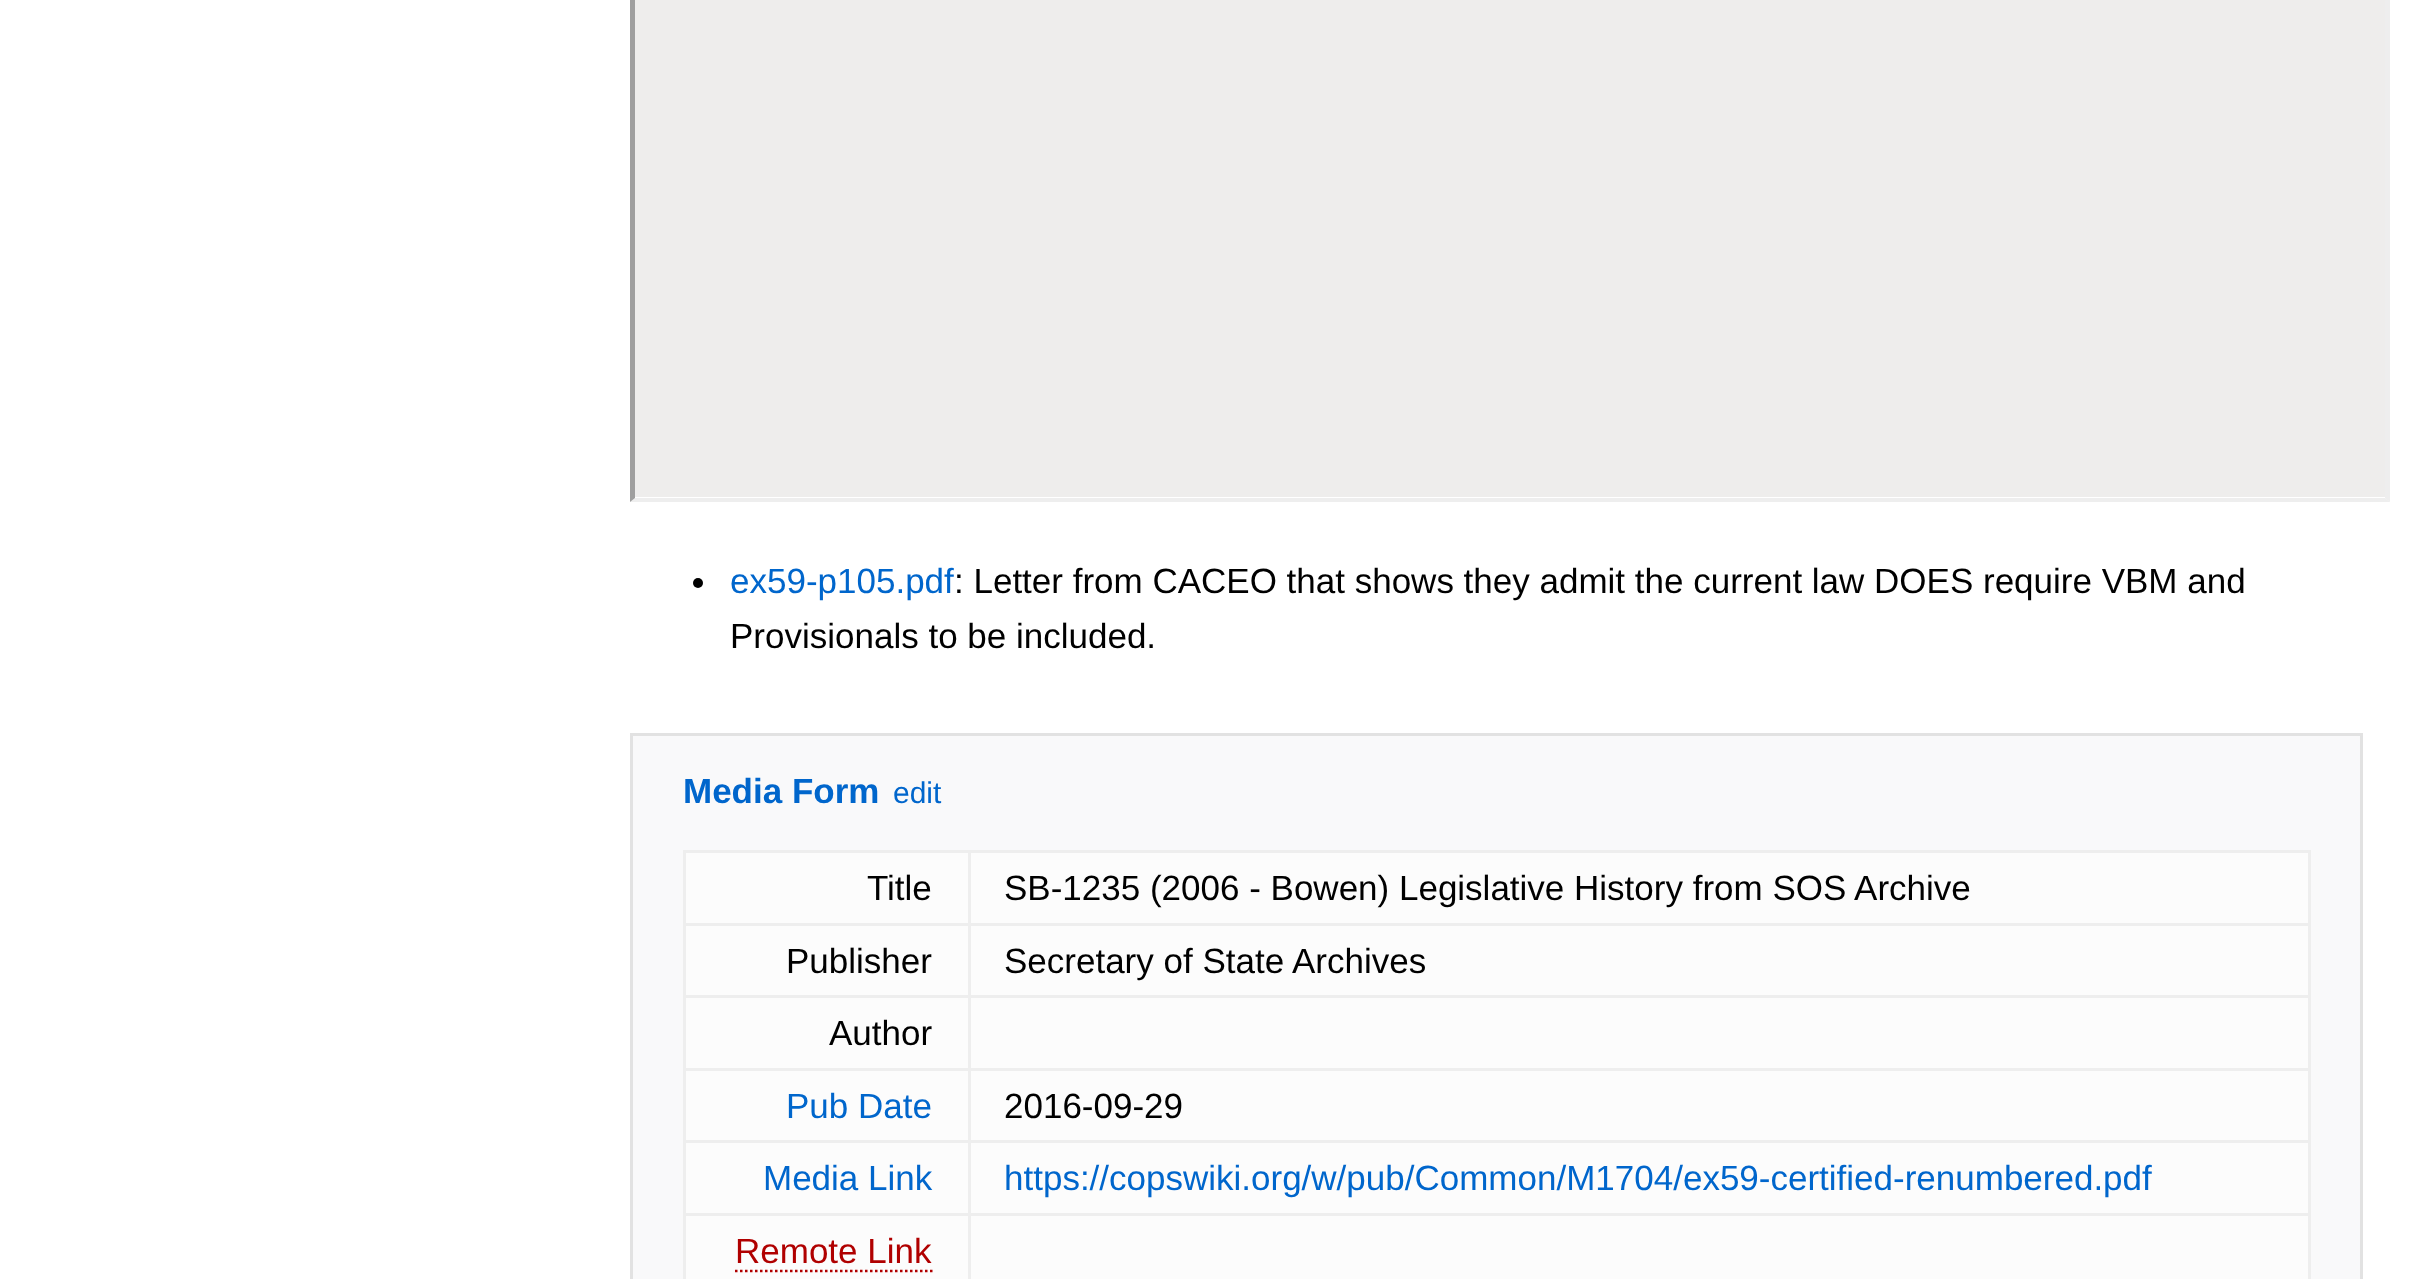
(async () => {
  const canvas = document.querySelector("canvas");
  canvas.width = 2432;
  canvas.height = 1279;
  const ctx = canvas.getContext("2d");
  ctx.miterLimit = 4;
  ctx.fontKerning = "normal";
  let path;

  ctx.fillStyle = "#ffffff";
  ctx.fillRect(0, 0, 2432, 1279);
  ctx.fillStyle = "#eeeeee";
  path = new Path2D("M2390-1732V502L2385 498V-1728Z");
  ctx.fill(path);
  path = new Path2D("M2390 502H630L635 498H2385Z");
  ctx.fill(path);
  ctx.fillStyle = "#9f9f9f";
  path = new Path2D("M630 502V-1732L635-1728V498Z");
  ctx.fill(path);
  ctx.fillStyle = "#eeedec";
  ctx.fillRect(635, 0, 1750, 497);
  ctx.fillStyle = "#000000";
  ctx.beginPath();
  ctx.arc(698, 583, 5, 0, Math.PI * 2);
  ctx.fill();
  ctx.fillStyle = "#f9f9fa";
  ctx.beginPath();
  ctx.rect(631.5, 734.5, 1730, 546);
  ctx.fill();
  ctx.strokeStyle = "#e2e2e2";
  ctx.lineWidth = 3;
  ctx.stroke();
  for (const [x, y, w, h, color] of [
    [686, 853, 1622, 426, "#fcfcfc"],
    [683, 850, 1627, 3, "#eeeeee"],
    [2308, 850, 3, 429, "#eeeeee"],
    [683, 850, 3, 429, "#eeeeee"],
    [968, 923, 1342, 3, "#eeeeee"],
    [968, 995, 1342, 3, "#eeeeee"],
    [968, 1068, 1342, 3, "#eeeeee"],
    [968, 1140, 1342, 3, "#eeeeee"],
    [968, 1213, 1342, 3, "#eeeeee"],
    [968, 1213, 3, 66, "#eeeeee"],
    [683, 1213, 287, 3, "#eeeeee"],
    [968, 1140, 3, 75, "#eeeeee"],
    [683, 1140, 287, 3, "#eeeeee"],
    [968, 1068, 3, 75, "#eeeeee"],
    [683, 1068, 287, 3, "#eeeeee"],
    [968, 995, 3, 75, "#eeeeee"],
    [683, 995, 287, 3, "#eeeeee"],
    [968, 923, 3, 75, "#eeeeee"],
    [683, 923, 287, 3, "#eeeeee"],
    [968, 850, 3, 75, "#eeeeee"],
  ]) {
    ctx.fillStyle = color;
    ctx.fillRect(x, y, w, h);
  }
  path = new Path2D("M735 1271H932.5");
  ctx.strokeStyle = "#b00000";
  ctx.lineWidth = 2.5;
  ctx.setLineDash([2.5, 2.5]);
  ctx.stroke(path);
  ctx.font = "35px Liberation Sans";
  ctx.fillStyle = "#0066cc";
  ctx.fillText("ex59-p105.pdf", 730, 593);
  ctx.fillStyle = "#000000";
  ctx.fillText(": Letter from CACEO that shows they admit the current law DOES require VBM and", 954, 593);
  ctx.fillText("Provisionals to be included.", 730, 648);
  ctx.font = "bold 35px Liberation Sans";
  ctx.fillStyle = "#0066cc";
  ctx.fillText("Media Form", 683, 803);
  ctx.font = "30px Liberation Sans";
  ctx.fillText("edit", 893, 803);
  ctx.font = "35px Liberation Sans";
  ctx.fillStyle = "#000000";
  for (const [text, x, y] of [
    ["Title", 867, 900],
    ["SB-1235 (2006 - Bowen) Legislative History from SOS Archive", 1004, 900],
    ["Publisher", 786, 973],
    ["Secretary of State Archives", 1004, 973],
    ["Author", 829, 1045],
  ]) {
    ctx.fillText(text, x, y);
  }
  ctx.fillStyle = "#0066cc";
  ctx.fillText("Pub Date", 786, 1118);
  ctx.fillStyle = "#000000";
  ctx.fillText("2016-09-29", 1004, 1118);
  ctx.fillStyle = "#0066cc";
  ctx.fillText("Media Link", 763, 1190);
  ctx.fillText("https://copswiki.org/w/pub/Common/M1704/ex59-certified-renumbered.pdf", 1004, 1190);
  ctx.fillStyle = "#b00000";
  ctx.fillText("Remote Link", 735, 1263);
})();
